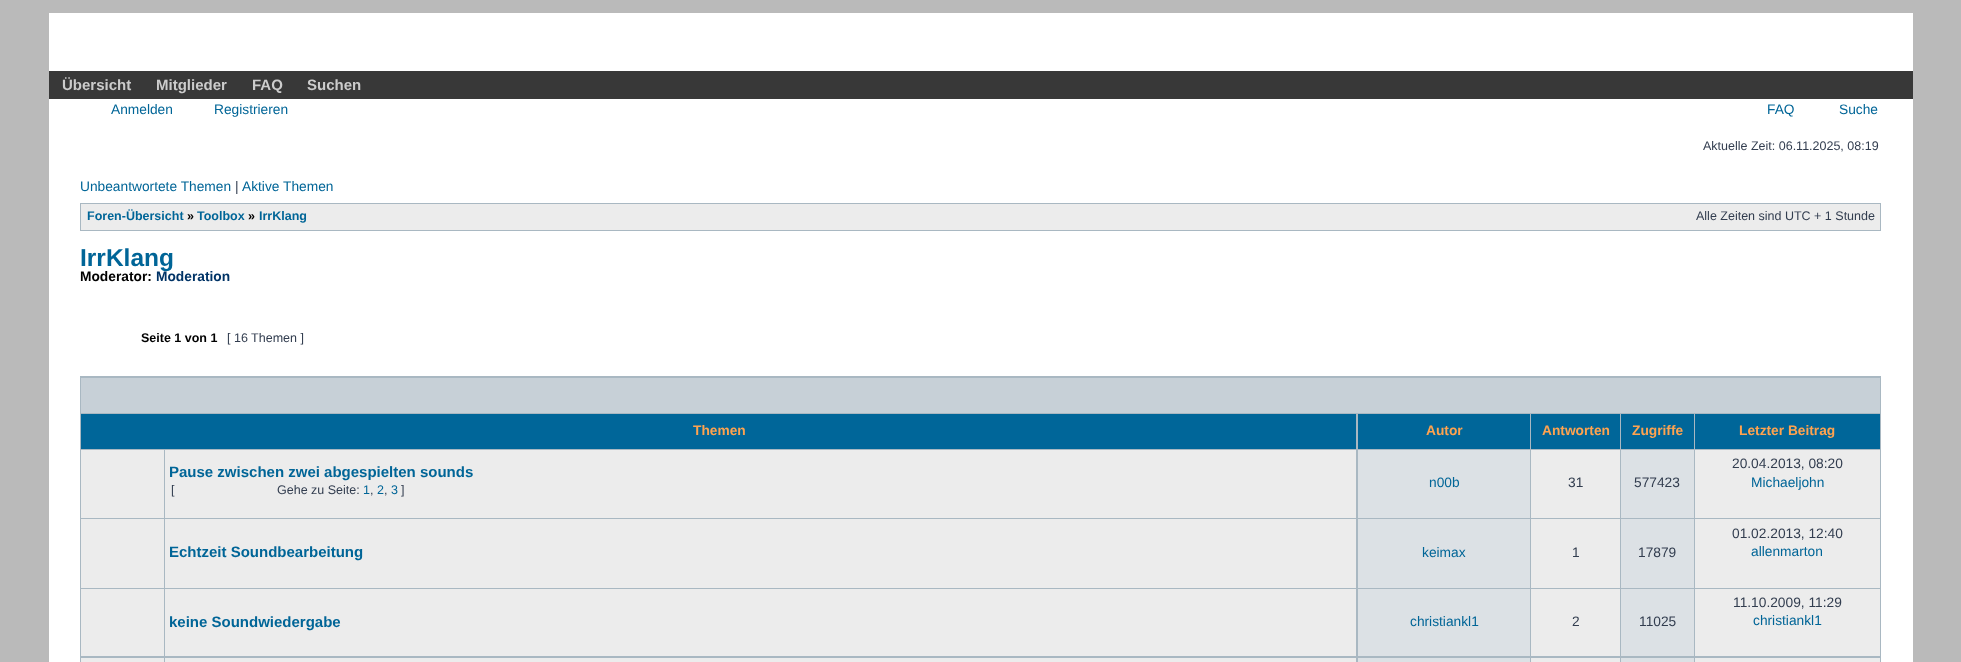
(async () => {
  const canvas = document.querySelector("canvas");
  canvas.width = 1961;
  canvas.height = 662;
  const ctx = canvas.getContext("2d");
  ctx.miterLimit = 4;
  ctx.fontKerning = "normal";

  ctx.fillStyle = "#bababa";
  ctx.fillRect(0, 0, 1961, 662);
  for (const [x, y, w, h, color] of [
    [49, 13, 1864, 649, "#ffffff"],
    [49, 71, 1864, 28, "#383838"],
    [80, 203, 1801, 28, "#a9b8c2"],
    [81, 204, 1799, 26, "#ececec"],
    [80, 376, 1801, 286, "#a9b8c2"],
    [81, 378, 1799, 35, "#c7d0d7"],
    [81, 414, 1275, 35, "#006699"],
    [1358, 414, 172, 35, "#006699"],
    [1531, 414, 89, 35, "#006699"],
    [1621, 414, 73, 35, "#006699"],
    [1695, 414, 185, 35, "#006699"],
    [81, 450, 83, 68, "#ececec"],
    [165, 450, 1191, 68, "#ececec"],
    [1358, 450, 172, 68, "#dce1e5"],
    [1531, 450, 89, 68, "#ececec"],
    [1621, 450, 73, 68, "#dce1e5"],
    [1695, 450, 185, 68, "#ececec"],
    [81, 519, 83, 69, "#ececec"],
    [165, 519, 1191, 69, "#ececec"],
    [1358, 519, 172, 69, "#dce1e5"],
    [1531, 519, 89, 69, "#ececec"],
    [1621, 519, 73, 69, "#dce1e5"],
    [1695, 519, 185, 69, "#ececec"],
    [81, 589, 83, 67, "#ececec"],
    [165, 589, 1191, 67, "#ececec"],
    [1358, 589, 172, 67, "#dce1e5"],
    [1531, 589, 89, 67, "#ececec"],
    [1621, 589, 73, 67, "#dce1e5"],
    [1695, 589, 185, 67, "#ececec"],
    [81, 658, 83, 4, "#ececec"],
    [165, 658, 1191, 4, "#ececec"],
    [1358, 658, 172, 4, "#dce1e5"],
    [1531, 658, 89, 4, "#ececec"],
    [1621, 658, 73, 4, "#dce1e5"],
    [1695, 658, 185, 4, "#ececec"],
  ]) {
    ctx.fillStyle = color;
    ctx.fillRect(x, y, w, h);
  }
  ctx.font = "bold 15px Liberation Sans";
  ctx.fillStyle = "#cccccc";
  for (const [text, x, y] of [
    ["Übersicht", 62, 90],
    ["Mitglieder", 156, 90],
    ["FAQ", 252, 90],
    ["Suchen", 307, 90],
  ]) {
    ctx.fillText(text, x, y);
  }
  ctx.font = "13.75px Liberation Sans";
  ctx.fillStyle = "#006597";
  for (const [text, x, y] of [
    ["Anmelden", 111, 114],
    ["Registrieren", 214, 114],
    ["FAQ", 1767, 114],
    ["Suche", 1839, 114],
  ]) {
    ctx.fillText(text, x, y);
  }
  ctx.font = "12.5px Liberation Sans";
  ctx.fillStyle = "#323d4f";
  ctx.fillText("Aktuelle Zeit: 06.11.2025, 08:19", 1703, 150);
  ctx.font = "13.75px Liberation Sans";
  ctx.fillStyle = "#006597";
  ctx.fillText("Unbeantwortete Themen", 80, 191);
  ctx.fillStyle = "#323d4f";
  ctx.fillText("|", 235, 191);
  ctx.fillStyle = "#006597";
  ctx.fillText("Aktive Themen", 242, 191);
  ctx.font = "bold 12.5px Liberation Sans";
  ctx.fillText("Foren-Übersicht", 87, 220);
  ctx.fillStyle = "#000000";
  ctx.fillText("»", 187, 220);
  ctx.fillStyle = "#006597";
  ctx.fillText("Toolbox", 197, 220);
  ctx.fillStyle = "#000000";
  ctx.fillText("»", 248, 220);
  ctx.fillStyle = "#006597";
  ctx.fillText("IrrKlang", 259, 220);
  ctx.font = "12.5px Liberation Sans";
  ctx.fillStyle = "#323d4f";
  ctx.fillText("Alle Zeiten sind UTC + 1 Stunde", 1696, 220);
  ctx.font = "bold 24.5px Liberation Sans";
  ctx.fillStyle = "#006597";
  ctx.fillText("IrrKlang", 80, 266);
  ctx.font = "bold 13.75px Liberation Sans";
  ctx.fillStyle = "#000000";
  ctx.fillText("Moderator:", 80, 281);
  ctx.fillStyle = "#003366";
  ctx.fillText("Moderation", 156, 281);
  ctx.font = "bold 12.5px Liberation Sans";
  ctx.fillStyle = "#000000";
  ctx.fillText("Seite 1 von 1", 141, 342);
  ctx.font = "12.5px Liberation Sans";
  ctx.fillStyle = "#323d4f";
  ctx.fillText("[ 16 Themen ]", 227, 342);
  ctx.font = "bold 13.75px Liberation Sans";
  ctx.fillStyle = "#ffa34f";
  for (const [text, x, y] of [
    ["Themen", 693, 435],
    ["Autor", 1426, 435],
    ["Antworten", 1542, 435],
    ["Zugriffe", 1632, 435],
    ["Letzter Beitrag", 1739, 435],
  ]) {
    ctx.fillText(text, x, y);
  }
  ctx.font = "bold 15px Liberation Sans";
  ctx.fillStyle = "#006597";
  ctx.fillText("Pause zwischen zwei abgespielten sounds", 169, 477);
  ctx.font = "12.5px Liberation Sans";
  ctx.fillStyle = "#323d4f";
  ctx.fillText("[", 171, 494);
  ctx.fillText("Gehe zu Seite:", 277, 494);
  ctx.fillStyle = "#006597";
  ctx.fillText("1", 363, 494);
  ctx.fillStyle = "#323d4f";
  ctx.fillText(",", 370, 494);
  ctx.fillStyle = "#006597";
  ctx.fillText("2", 377, 494);
  ctx.fillStyle = "#323d4f";
  ctx.fillText(",", 384, 494);
  ctx.fillStyle = "#006597";
  ctx.fillText("3", 391, 494);
  ctx.fillStyle = "#323d4f";
  ctx.fillText("]", 401, 494);
  ctx.font = "13.75px Liberation Sans";
  ctx.fillStyle = "#006597";
  ctx.fillText("n00b", 1429, 487);
  ctx.fillStyle = "#323d4f";
  for (const [text, x, y] of [
    ["31", 1568, 487],
    ["577423", 1634, 487],
    ["20.04.2013, 08:20", 1732, 468],
  ]) {
    ctx.fillText(text, x, y);
  }
  ctx.fillStyle = "#006597";
  ctx.fillText("Michaeljohn", 1751, 487);
  ctx.font = "bold 15px Liberation Sans";
  ctx.fillText("Echtzeit Soundbearbeitung", 169, 557);
  ctx.font = "13.75px Liberation Sans";
  ctx.fillText("keimax", 1422, 557);
  ctx.fillStyle = "#323d4f";
  for (const [text, x, y] of [
    ["1", 1572, 557],
    ["17879", 1638, 557],
    ["01.02.2013, 12:40", 1732, 538],
  ]) {
    ctx.fillText(text, x, y);
  }
  ctx.fillStyle = "#006597";
  ctx.fillText("allenmarton", 1751, 556);
  ctx.font = "bold 15px Liberation Sans";
  ctx.fillText("keine Soundwiedergabe", 169, 627);
  ctx.font = "13.75px Liberation Sans";
  ctx.fillText("christiankl1", 1410, 626);
  ctx.fillStyle = "#323d4f";
  for (const [text, x, y] of [
    ["2", 1572, 626],
    ["11025", 1639, 626],
    ["11.10.2009, 11:29", 1733, 607],
  ]) {
    ctx.fillText(text, x, y);
  }
  ctx.fillStyle = "#006597";
  ctx.fillText("christiankl1", 1753, 625);
})();
